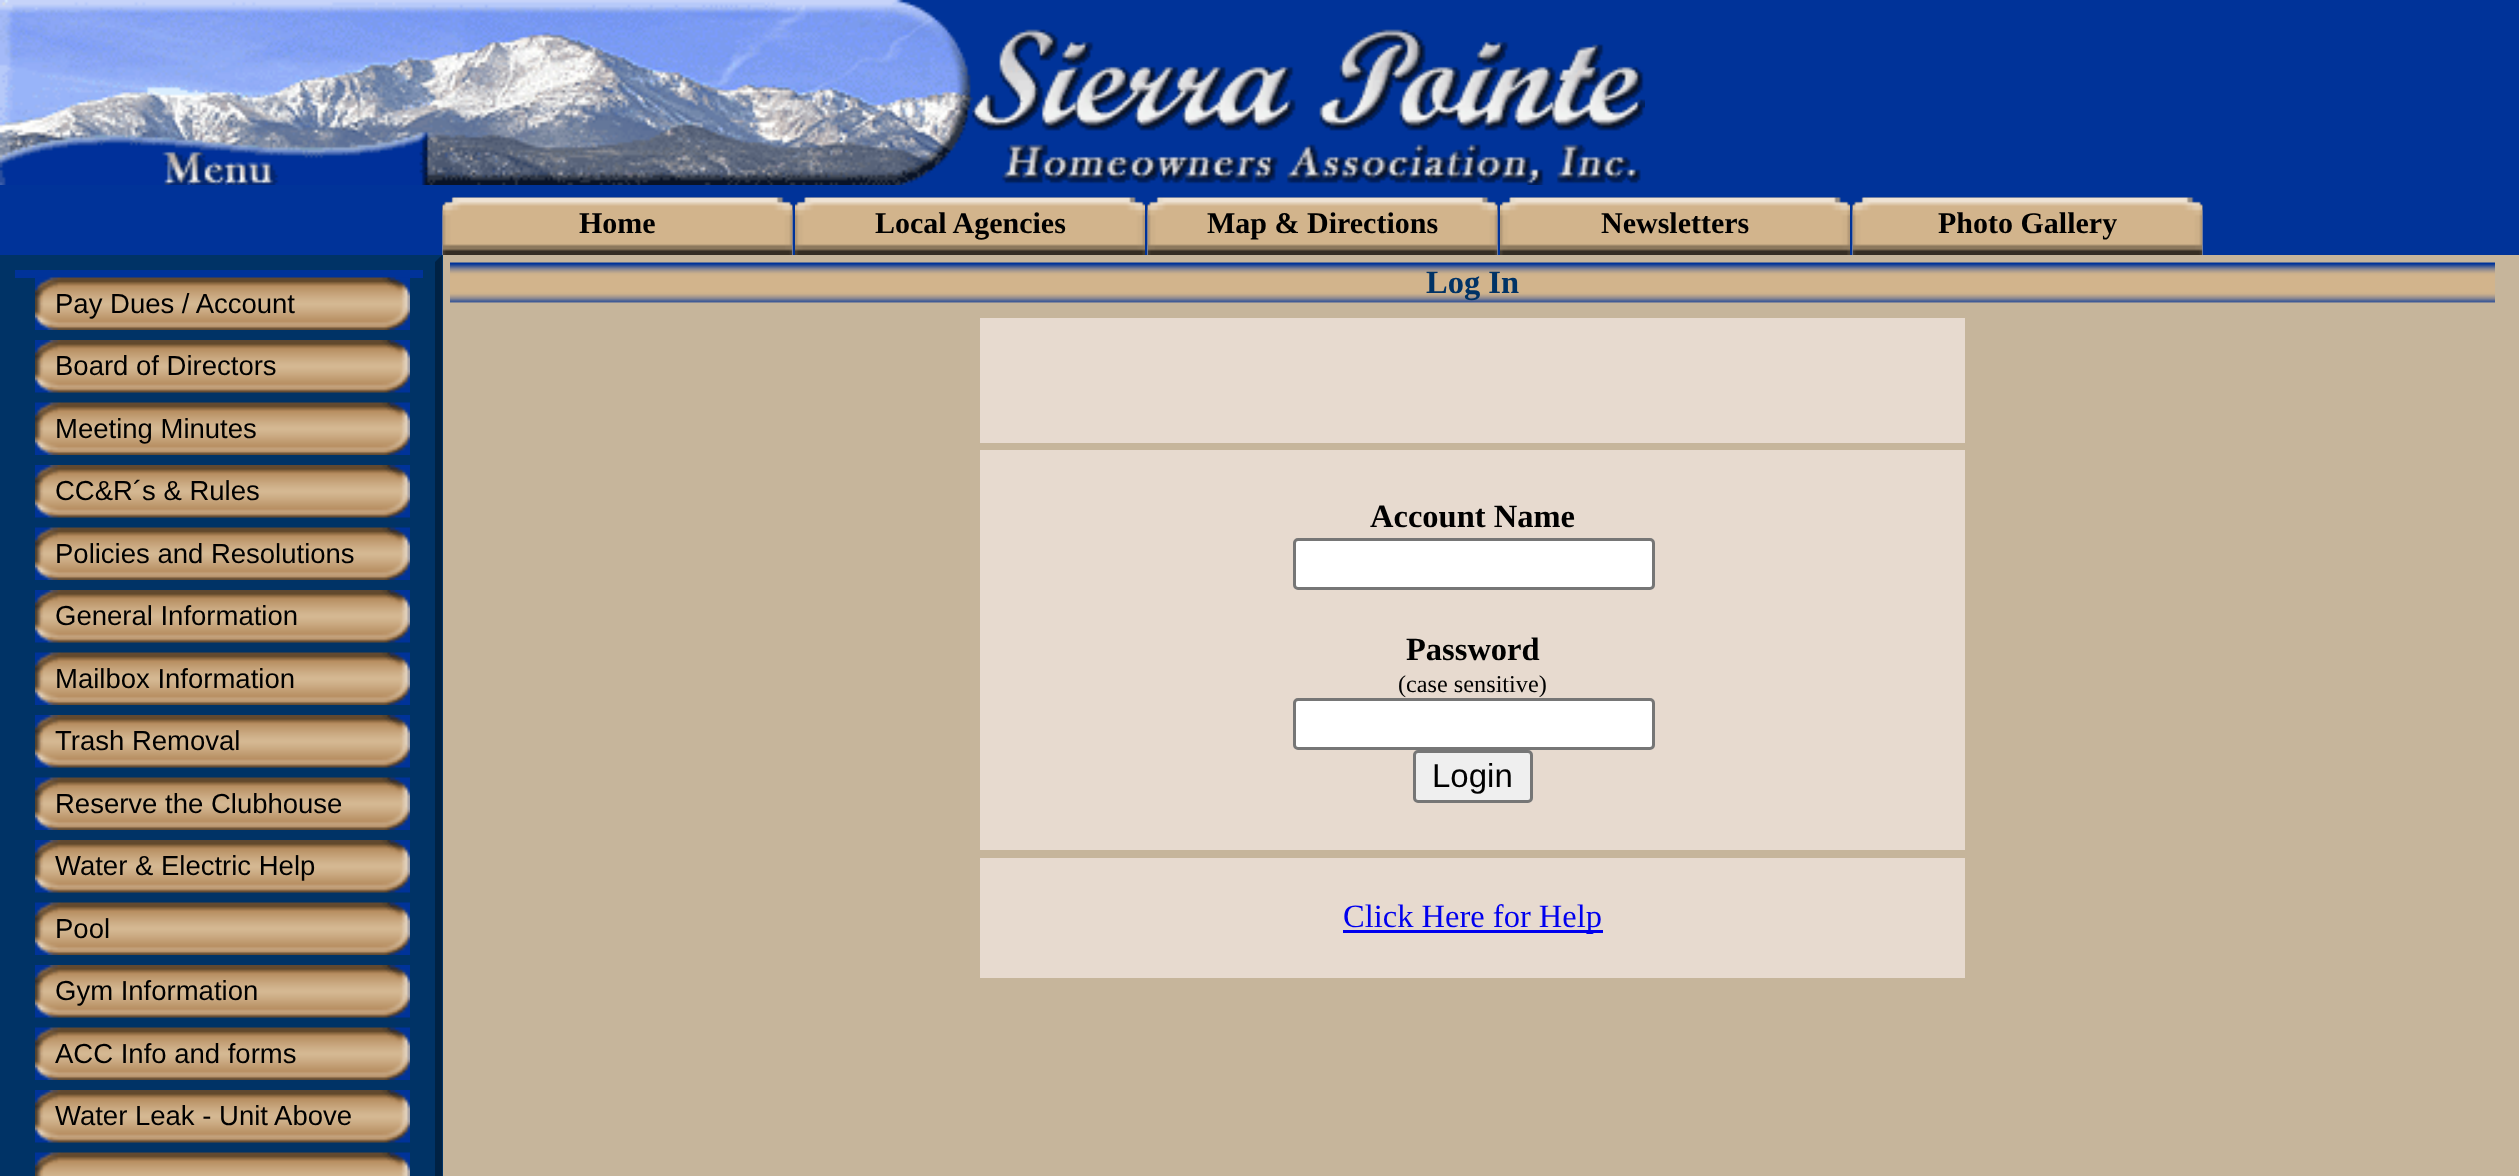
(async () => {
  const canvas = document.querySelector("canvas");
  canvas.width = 2519;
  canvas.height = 1176;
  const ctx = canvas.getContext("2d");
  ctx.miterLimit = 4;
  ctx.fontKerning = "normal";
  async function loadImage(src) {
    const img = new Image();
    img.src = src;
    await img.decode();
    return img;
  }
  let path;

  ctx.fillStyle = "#c6b59b";
  ctx.fillRect(0, 0, 2519, 1176);
  ctx.drawImage(await loadImage("img/1.png"), 0, 0, 1645, 185);
  ctx.fillStyle = "#003399";
  ctx.fillRect(1645, 0, 874, 185);
  ctx.fillRect(0, 185, 2519, 70);
  ctx.drawImage(await loadImage("img/2.png"), 442, 197, 351, 58);
  ctx.drawImage(await loadImage("img/3.png"), 442, 197, 351, 58);
  ctx.drawImage(await loadImage("img/4.png"), 795, 197, 350, 9);
  ctx.drawImage(await loadImage("img/5.png"), 795, 197, 350, 58);
  ctx.drawImage(await loadImage("img/6.png"), 1147, 197, 351, 58);
  ctx.drawImage(await loadImage("img/7.png"), 1147, 197, 351, 58);
  ctx.drawImage(await loadImage("img/8.png"), 1500, 197, 350, 9);
  ctx.drawImage(await loadImage("img/9.png"), 1500, 197, 350, 58);
  ctx.drawImage(await loadImage("img/6.png"), 1852, 197, 351, 58);
  ctx.drawImage(await loadImage("img/7.png"), 1852, 197, 351, 58);
  ctx.fillStyle = "#003366";
  ctx.fillRect(0, 255, 443, 921);
  ctx.fillStyle = "#002244";
  path = new Path2D("M442 255V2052L435 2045V262Z");
  ctx.fill(path);
  ctx.fillStyle = "#003399";
  ctx.fillRect(15, 270, 408, 8);
  ctx.drawImage(await loadImage("img/10.png"), 35, 277, 375, 53);
  ctx.drawImage(await loadImage("img/11.png"), 35, 340, 375, 53);
  ctx.drawImage(await loadImage("img/12.png"), 35, 402, 375, 53);
  ctx.drawImage(await loadImage("img/11.png"), 35, 465, 375, 53);
  ctx.drawImage(await loadImage("img/12.png"), 35, 527, 375, 53);
  ctx.drawImage(await loadImage("img/11.png"), 35, 590, 375, 53);
  ctx.drawImage(await loadImage("img/12.png"), 35, 652, 375, 53);
  ctx.drawImage(await loadImage("img/11.png"), 35, 715, 375, 53);
  ctx.drawImage(await loadImage("img/13.png"), 35, 777, 375, 53);
  ctx.drawImage(await loadImage("img/11.png"), 35, 840, 375, 53);
  ctx.drawImage(await loadImage("img/12.png"), 35, 902, 375, 53);
  ctx.drawImage(await loadImage("img/11.png"), 35, 965, 375, 53);
  ctx.drawImage(await loadImage("img/12.png"), 35, 1027, 375, 53);
  ctx.drawImage(await loadImage("img/11.png"), 35, 1090, 375, 53);
  ctx.drawImage(await loadImage("img/14.png"), 35, 1152, 375, 24);
  ctx.drawImage(await loadImage("img/15.png"), 450, 262, 2045, 41);
  ctx.fillStyle = "#e7dacf";
  ctx.fillRect(980, 318, 985, 125);
  ctx.fillRect(980, 450, 985, 400);
  ctx.fillStyle = "#ffffff";
  ctx.beginPath();
  ctx.roundRect(1294.5, 539.5, 359, 49, 3.5);
  ctx.fill();
  ctx.strokeStyle = "#767676";
  ctx.lineWidth = 3;
  ctx.stroke();
  ctx.beginPath();
  ctx.roundRect(1294.5, 699.5, 359, 49, 3.5);
  ctx.fill();
  ctx.stroke();
  ctx.fillStyle = "#efefef";
  ctx.beginPath();
  ctx.roundRect(1414.5, 751.5, 117, 50, 3.5);
  ctx.fill();
  ctx.stroke();
  ctx.fillStyle = "#e7dacf";
  ctx.fillRect(980, 858, 985, 120);
  ctx.fillStyle = "#0000ee";
  ctx.fillRect(1343, 930, 260, 3);
  ctx.font = "bold 30px Liberation Serif";
  ctx.fillStyle = "#000000";
  for (const [text, x, y] of [
    ["Home", 579, 233],
    ["Local Agencies", 875, 233],
    ["Map & Directions", 1207, 233],
    ["Newsletters", 1601, 233],
    ["Photo Gallery", 1938, 233],
  ]) {
    ctx.fillText(text, x, y);
  }
  ctx.font = "27.5px Liberation Sans";
  for (const [text, x, y] of [
    ["Pay Dues / Account", 55, 313],
    ["Board of Directors", 55, 375],
    ["Meeting Minutes", 55, 438],
    ["CC&R´s & Rules", 55, 500],
    ["Policies and Resolutions", 55, 563],
    ["General Information", 55, 625],
    ["Mailbox Information", 55, 688],
    ["Trash Removal", 55, 750],
    ["Reserve the Clubhouse", 55, 813],
    ["Water & Electric Help", 55, 875],
    ["Pool", 55, 938],
    ["Gym Information", 55, 1000],
    ["ACC Info and forms", 55, 1063],
    ["Water Leak - Unit Above", 55, 1125],
  ]) {
    ctx.fillText(text, x, y);
  }
  ctx.font = "bold 32.5px Liberation Serif";
  ctx.fillStyle = "#003366";
  ctx.fillText("Log In", 1426, 293);
  ctx.fillStyle = "#000000";
  ctx.fillText("Account Name", 1370, 527);
  ctx.fillText("Password", 1406, 660);
  ctx.font = "24.25px Liberation Serif";
  ctx.fillText("(case sensitive)", 1398, 692);
  ctx.font = "33px Liberation Sans";
  ctx.fillText("Login", 1432, 787);
  ctx.font = "32.5px Liberation Serif";
  ctx.fillStyle = "#0000ee";
  ctx.fillText("Click Here for Help", 1343, 927);
})();
